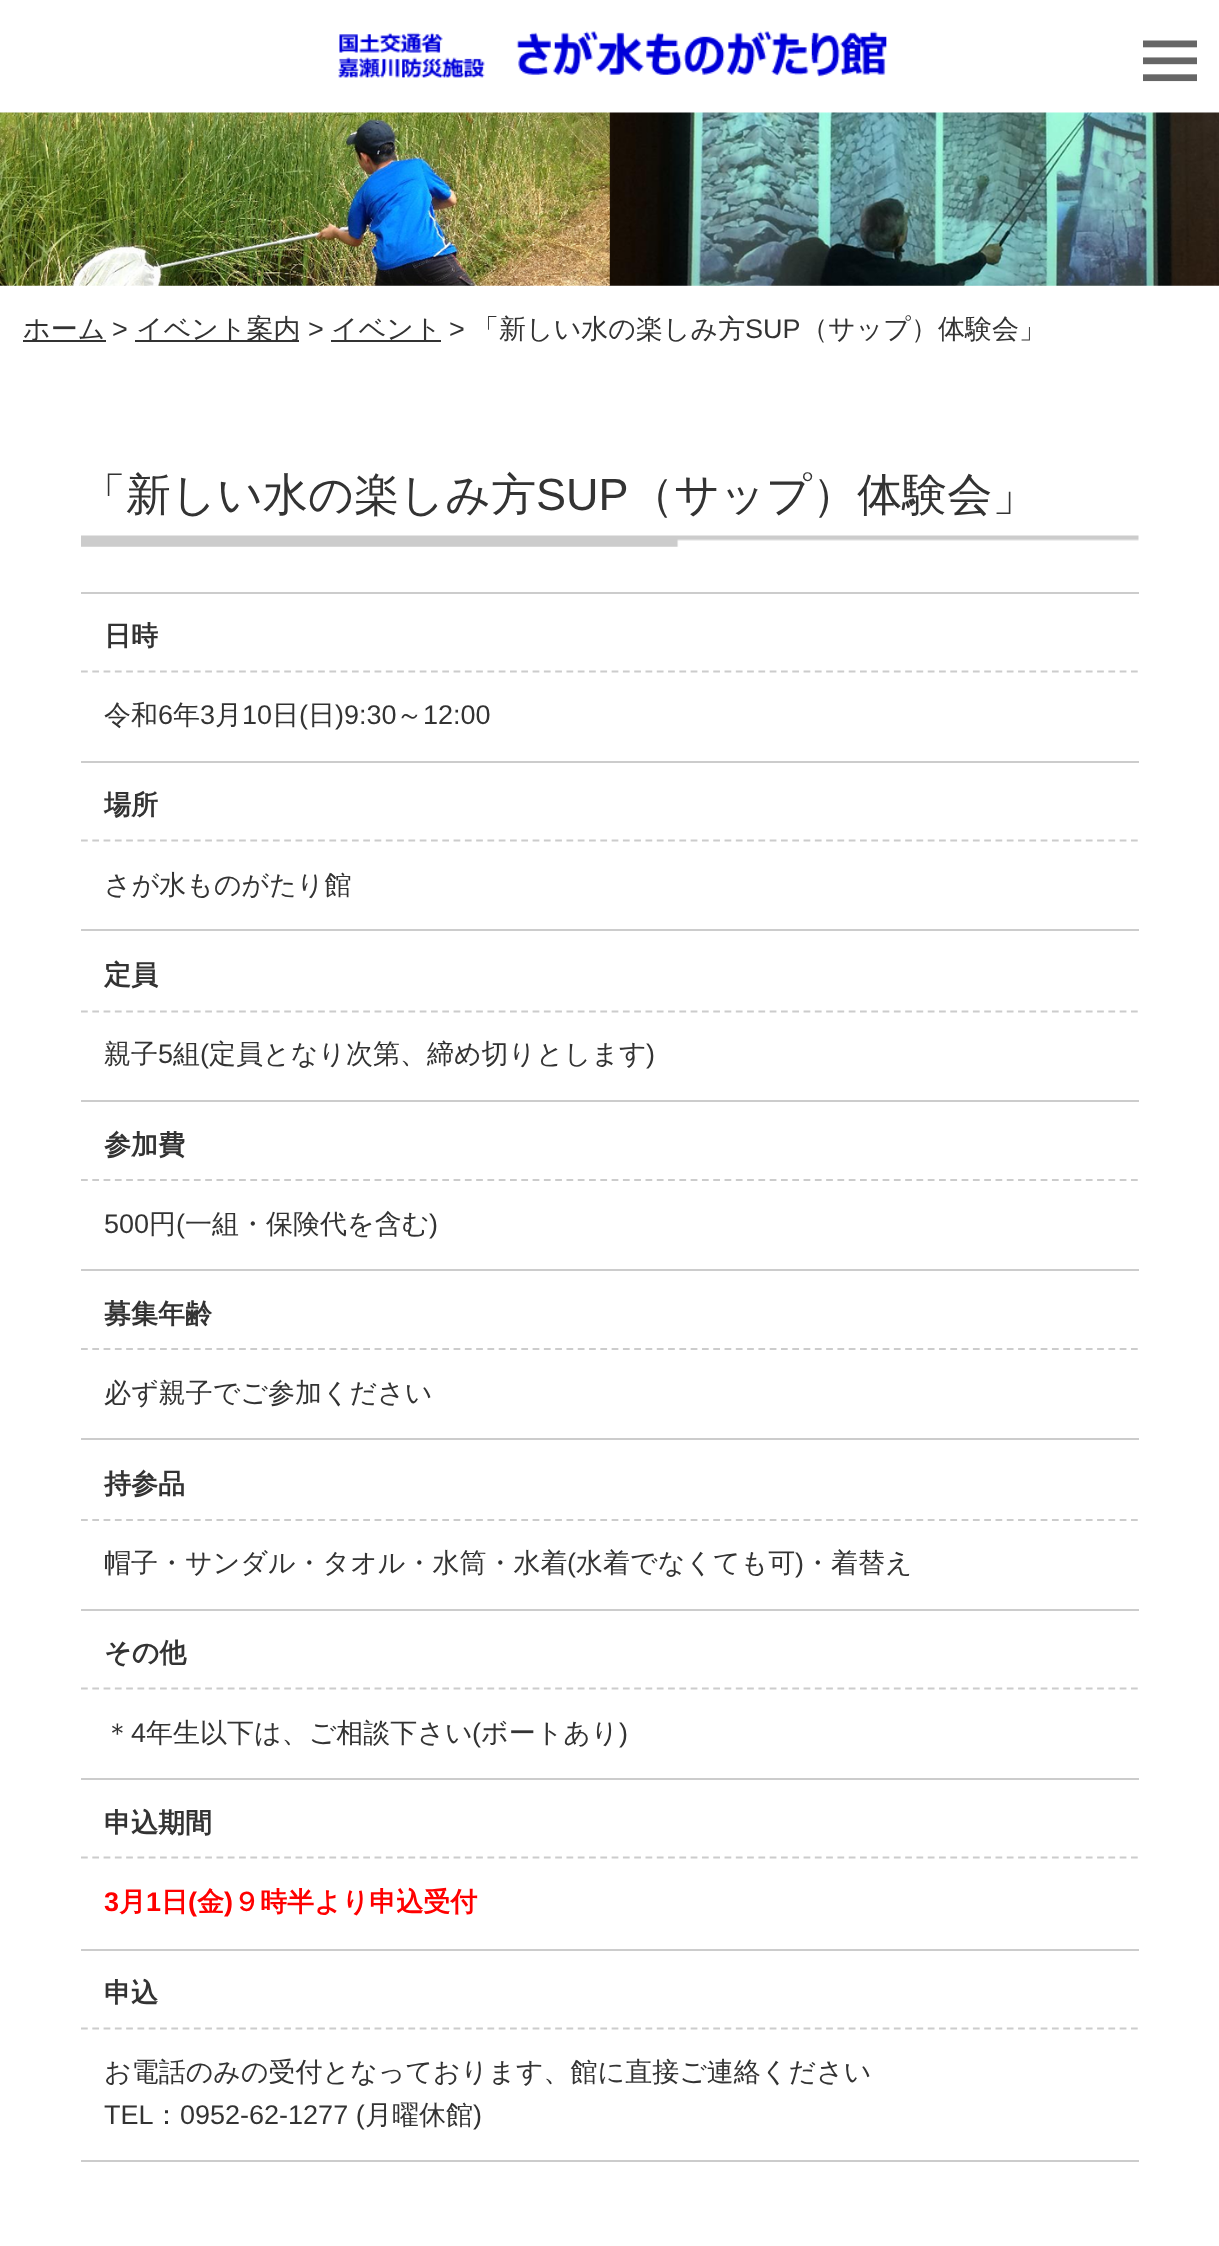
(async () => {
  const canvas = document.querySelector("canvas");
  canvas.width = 1219;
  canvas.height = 2246;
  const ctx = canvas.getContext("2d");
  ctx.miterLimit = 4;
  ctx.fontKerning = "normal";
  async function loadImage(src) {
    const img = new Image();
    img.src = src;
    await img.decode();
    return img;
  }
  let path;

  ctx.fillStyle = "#ffffff";
  ctx.fillRect(0, 0, 1219, 2246);
  ctx.drawImage(await loadImage("img/1.png"), 338, 31, 549, 47);
  ctx.drawImage(await loadImage("img/2.png"), 1143, 40, 54, 42);
  ctx.drawImage(await loadImage("img/3.png"), 0, 112, 1219, 174);
  for (const [x, y, w, h, color] of [
    [23, 340, 83, 2, "#333333"],
    [135, 340, 164, 2, "#333333"],
    [331, 340, 110, 2, "#333333"],
  ]) {
    ctx.fillStyle = color;
    ctx.fillRect(x, y, w, h);
  }
  ctx.drawImage(await loadImage("img/4.png"), 81, 535, 1058, 12);
  ctx.fillStyle = "#cccccc";
  ctx.fillRect(81, 592, 1058, 2);
  path = new Path2D("M81 671.5H1138.5");
  ctx.strokeStyle = "#cccccc";
  ctx.lineWidth = 2.2;
  ctx.setLineDash([6.75, 4.54]);
  ctx.stroke(path);
  ctx.fillRect(81, 761, 1058, 2);
  path = new Path2D("M81 840.5H1138.5");
  ctx.stroke(path);
  ctx.fillRect(81, 929, 1058, 2);
  path = new Path2D("M81 1011.5H1138.5");
  ctx.stroke(path);
  ctx.fillRect(81, 1100, 1058, 2);
  path = new Path2D("M81 1180H1138.5");
  ctx.stroke(path);
  ctx.fillRect(81, 1269, 1058, 2);
  path = new Path2D("M81 1349H1138.5");
  ctx.stroke(path);
  ctx.fillRect(81, 1438, 1058, 2);
  path = new Path2D("M81 1520H1138.5");
  ctx.stroke(path);
  ctx.fillRect(81, 1609, 1058, 2);
  path = new Path2D("M81 1688.5H1138.5");
  ctx.stroke(path);
  ctx.fillRect(81, 1778, 1058, 2);
  path = new Path2D("M81 1857.5H1138.5");
  ctx.stroke(path);
  ctx.fillRect(81, 1949, 1058, 2);
  ctx.fillRect(81, 2160, 1058, 2);
  path = new Path2D("M81 2028.5H1138.5");
  ctx.stroke(path);
  ctx.font = "500 27px WenQuanYi Zen Hei";
  ctx.fillStyle = "#333333";
  ctx.fillText("ホーム", 23, 338);
  ctx.font = "27px Liberation Sans";
  ctx.fillText(">", 112, 338);
  ctx.font = "500 27px WenQuanYi Zen Hei";
  ctx.fillText("イベント案内", 136, 338);
  ctx.font = "27px Liberation Sans";
  ctx.fillText(">", 308, 338);
  ctx.font = "500 27px WenQuanYi Zen Hei";
  ctx.fillText("イベント", 331, 338);
  ctx.font = "27px Liberation Sans";
  ctx.fillText(">", 449, 338);
  ctx.font = "500 27px WenQuanYi Zen Hei";
  ctx.fillText("「新しい水の楽しみ方", 472, 338);
  ctx.font = "27px Liberation Sans";
  ctx.fillText("SUP", 745, 338);
  ctx.font = "500 27px WenQuanYi Zen Hei";
  ctx.fillText("（サップ）体験会」", 801, 338);
  ctx.font = "500 45px WenQuanYi Zen Hei";
  ctx.fillText("「新しい水の楽しみ方", 81, 510);
  ctx.font = "45px Liberation Sans";
  ctx.fillText("SUP", 536, 510);
  ctx.font = "500 45px WenQuanYi Zen Hei";
  ctx.fillText("（サップ）体験会」", 629, 510);
  ctx.font = "bold 27px WenQuanYi Zen Hei";
  ctx.fillText("日時", 104, 645);
  ctx.font = "500 27px WenQuanYi Zen Hei";
  ctx.fillText("令和", 104, 724);
  ctx.font = "27px Liberation Sans";
  ctx.fillText("6", 158, 724);
  ctx.font = "500 27px WenQuanYi Zen Hei";
  ctx.fillText("年", 173, 724);
  ctx.font = "27px Liberation Sans";
  ctx.fillText("3", 200, 724);
  ctx.font = "500 27px WenQuanYi Zen Hei";
  ctx.fillText("月", 215, 724);
  ctx.font = "27px Liberation Sans";
  ctx.fillText("10", 242, 724);
  ctx.font = "500 27px WenQuanYi Zen Hei";
  ctx.fillText("日", 272, 724);
  ctx.font = "27px Liberation Sans";
  ctx.fillText("(", 299, 724);
  ctx.font = "500 27px WenQuanYi Zen Hei";
  ctx.fillText("日", 308, 724);
  ctx.font = "27px Liberation Sans";
  ctx.fillText(")9:30", 335, 724);
  ctx.font = "500 27px WenQuanYi Zen Hei";
  ctx.fillText("～", 396, 724);
  ctx.font = "27px Liberation Sans";
  ctx.fillText("12:00", 423, 724);
  ctx.font = "bold 27px WenQuanYi Zen Hei";
  ctx.fillText("場所", 104, 814);
  ctx.font = "500 27px WenQuanYi Zen Hei";
  ctx.fillText("さが水ものがたり館", 104, 894);
  ctx.font = "bold 27px WenQuanYi Zen Hei";
  ctx.fillText("定員", 104, 984);
  ctx.font = "500 27px WenQuanYi Zen Hei";
  ctx.fillText("親子", 104, 1063);
  ctx.font = "27px Liberation Sans";
  ctx.fillText("5", 158, 1063);
  ctx.font = "500 27px WenQuanYi Zen Hei";
  ctx.fillText("組", 173, 1063);
  ctx.font = "27px Liberation Sans";
  ctx.fillText("(", 200, 1063);
  ctx.font = "500 27px WenQuanYi Zen Hei";
  ctx.fillText("定員となり次第、締め切りとします", 209, 1063);
  ctx.font = "27px Liberation Sans";
  ctx.fillText(")", 646, 1063);
  ctx.font = "bold 27px WenQuanYi Zen Hei";
  ctx.fillText("参加費", 104, 1154);
  ctx.font = "27px Liberation Sans";
  ctx.fillText("500", 104, 1233);
  ctx.font = "500 27px WenQuanYi Zen Hei";
  ctx.fillText("円", 149, 1233);
  ctx.font = "27px Liberation Sans";
  ctx.fillText("(", 176, 1233);
  ctx.font = "500 27px WenQuanYi Zen Hei";
  ctx.fillText("一組・保険代を含む", 185, 1233);
  ctx.font = "27px Liberation Sans";
  ctx.fillText(")", 429, 1233);
  ctx.font = "bold 27px WenQuanYi Zen Hei";
  ctx.fillText("募集年齢", 104, 1323);
  ctx.font = "500 27px WenQuanYi Zen Hei";
  ctx.fillText("必ず親子でご参加ください", 104, 1402);
  ctx.font = "bold 27px WenQuanYi Zen Hei";
  ctx.fillText("持参品", 104, 1493);
  ctx.font = "500 27px WenQuanYi Zen Hei";
  ctx.fillText("帽子・サンダル・タオル・水筒・水着", 104, 1572);
  ctx.font = "27px Liberation Sans";
  ctx.fillText("(", 567, 1572);
  ctx.font = "500 27px WenQuanYi Zen Hei";
  ctx.fillText("水着でなくても可", 576, 1572);
  ctx.font = "27px Liberation Sans";
  ctx.fillText(")", 795, 1572);
  ctx.font = "500 27px WenQuanYi Zen Hei";
  ctx.fillText("・着替え", 804, 1572);
  ctx.font = "bold 27px WenQuanYi Zen Hei";
  ctx.fillText("その他", 104, 1662);
  ctx.font = "500 27px WenQuanYi Zen Hei";
  ctx.fillText("＊", 104, 1742);
  ctx.font = "27px Liberation Sans";
  ctx.fillText("4", 131, 1742);
  ctx.font = "500 27px WenQuanYi Zen Hei";
  ctx.fillText("年生以下は、ご相談下さい", 146, 1742);
  ctx.font = "27px Liberation Sans";
  ctx.fillText("(", 472, 1742);
  ctx.font = "500 27px WenQuanYi Zen Hei";
  ctx.fillText("ボートあり", 481, 1742);
  ctx.font = "27px Liberation Sans";
  ctx.fillText(")", 619, 1742);
  ctx.font = "bold 27px WenQuanYi Zen Hei";
  ctx.fillText("申込期間", 104, 1832);
  ctx.font = "bold 27px Liberation Sans";
  ctx.fillStyle = "#ff0000";
  ctx.fillText("3", 104, 1911);
  ctx.font = "bold 27px WenQuanYi Zen Hei";
  ctx.fillText("月", 119, 1911);
  ctx.font = "bold 27px Liberation Sans";
  ctx.fillText("1", 146, 1911);
  ctx.font = "bold 27px WenQuanYi Zen Hei";
  ctx.fillText("日", 161, 1911);
  ctx.font = "bold 27px Liberation Sans";
  ctx.fillText("(", 188, 1911);
  ctx.font = "bold 27px WenQuanYi Zen Hei";
  ctx.fillText("金", 197, 1911);
  ctx.font = "bold 27px Liberation Sans";
  ctx.fillText(")", 224, 1911);
  ctx.font = "bold 27px WenQuanYi Zen Hei";
  ctx.fillText("９時半より申込受付", 233, 1911);
  ctx.fillStyle = "#333333";
  ctx.fillText("申込", 104, 2002);
  ctx.font = "500 27px WenQuanYi Zen Hei";
  ctx.fillText("お電話のみの受付となっております、館に直接ご連絡ください", 104, 2081);
  ctx.font = "27px Liberation Sans";
  ctx.fillText("TEL", 104, 2124);
  ctx.font = "500 27px WenQuanYi Zen Hei";
  ctx.fillText("：", 153, 2124);
  ctx.font = "27px Liberation Sans";
  ctx.fillText("0952-62-1277 (", 180, 2124);
  ctx.font = "500 27px WenQuanYi Zen Hei";
  ctx.fillText("月曜休館", 365, 2124);
  ctx.font = "27px Liberation Sans";
  ctx.fillText(")", 473, 2124);
})();
